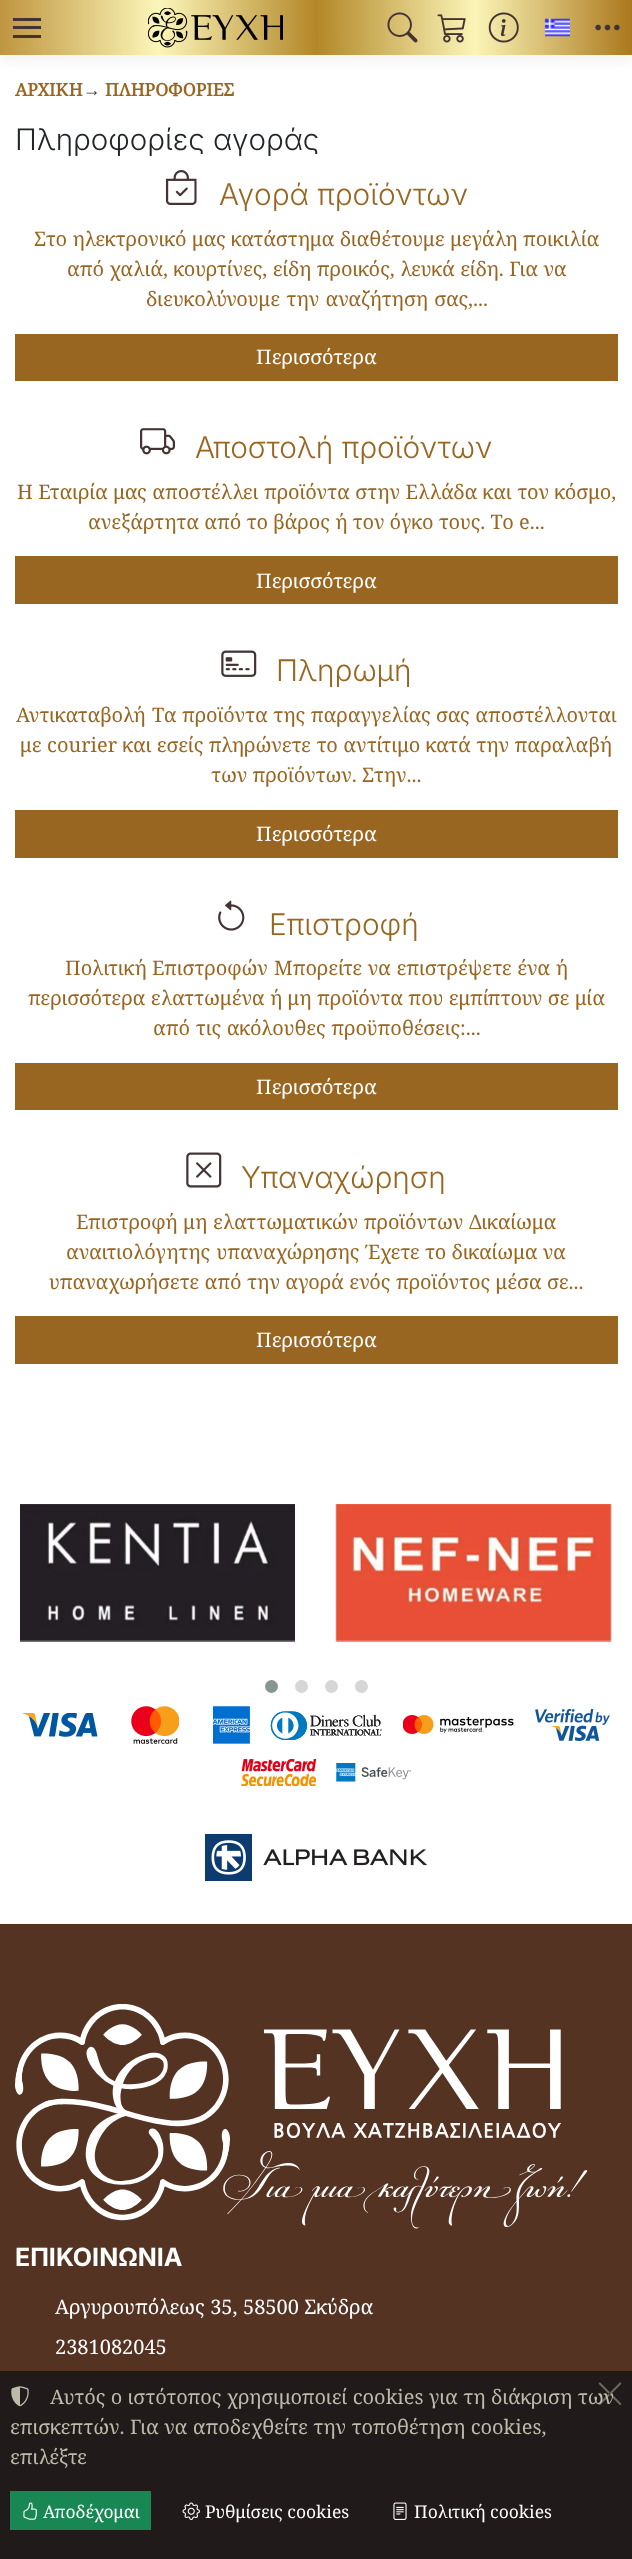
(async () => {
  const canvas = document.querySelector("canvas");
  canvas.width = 632;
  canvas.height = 2559;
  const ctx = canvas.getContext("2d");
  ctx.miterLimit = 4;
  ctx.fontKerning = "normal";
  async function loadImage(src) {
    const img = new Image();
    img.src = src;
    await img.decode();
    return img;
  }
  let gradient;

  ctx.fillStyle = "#ffffff";
  ctx.fillRect(0, 0, 632, 2559);
  ctx.fillStyle = "rgba(0, 0, 0, 0.05)";
  ctx.filter = "blur(6px)";
  ctx.beginPath();
  ctx.rect(0, 6, 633, 55);
  ctx.fill();
  ctx.filter = "none";
  gradient = ctx.createLinearGradient(0, 28, 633, 27);
  gradient.addColorStop(0, "#bf953f");
  gradient.addColorStop(0.25, "#fcf6ba");
  gradient.addColorStop(0.5, "#b38728");
  gradient.addColorStop(0.75, "#fbf5b7");
  gradient.addColorStop(1, "#aa771c");
  ctx.fillStyle = gradient;
  ctx.fillRect(0, 0, 632, 55);
  for (const [x, y, w, h, color] of [
    [13, 26, 28, 3, "#443333"],
    [13, 18, 28, 3, "#443333"],
    [13, 35, 28, 3, "#443333"],
  ]) {
    ctx.fillStyle = color;
    ctx.fillRect(x, y, w, h);
  }
  ctx.drawImage(await loadImage("img/1.png"), 148, 8, 135, 40);
  ctx.drawImage(await loadImage("img/2.png"), 387, 12, 31, 31);
  ctx.drawImage(await loadImage("img/3.png"), 437, 14, 29, 29);
  ctx.drawImage(await loadImage("img/4.png"), 488, 12, 31, 31);
  ctx.drawImage(await loadImage("img/5.png"), 544, 18, 26, 19);
  ctx.drawImage(await loadImage("img/6.png"), 595, 24, 25, 7);
  ctx.drawImage(await loadImage("img/7.png"), 165, 170, 32, 35);
  ctx.fillStyle = "#996622";
  ctx.fillRect(15, 334, 603, 47);
  ctx.drawImage(await loadImage("img/8.png"), 140, 428, 35, 27);
  ctx.fillRect(15, 556, 603, 48);
  ctx.drawImage(await loadImage("img/9.png"), 221, 650, 36, 27);
  ctx.fillRect(15, 810, 603, 48);
  ctx.drawImage(await loadImage("img/10.png"), 218, 900, 27, 31);
  ctx.fillRect(15, 1063, 603, 47);
  ctx.drawImage(await loadImage("img/11.png"), 186, 1152, 36, 36);
  ctx.fillRect(15, 1316, 603, 48);
  ctx.drawImage(await loadImage("img/12.png"), 20, 1504, 275, 138);
  ctx.drawImage(await loadImage("img/13.png"), 335, 1504, 277, 138);
  ctx.fillStyle = "#869791";
  ctx.beginPath();
  ctx.arc(271.5, 1686.5, 6.5, 0, Math.PI * 2);
  ctx.fill();
  ctx.fillStyle = "#d6d6d6";
  ctx.beginPath();
  ctx.arc(301.5, 1686.5, 6.5, 0, Math.PI * 2);
  ctx.fill();
  ctx.beginPath();
  ctx.arc(331.5, 1686.5, 6.5, 0, Math.PI * 2);
  ctx.fill();
  ctx.beginPath();
  ctx.arc(361.5, 1686.5, 6.5, 0, Math.PI * 2);
  ctx.fill();
  ctx.drawImage(await loadImage("img/14.png"), 23, 1713, 75, 24);
  ctx.drawImage(await loadImage("img/15.png"), 131, 1706, 48, 38);
  ctx.drawImage(await loadImage("img/16.png"), 213, 1706, 37, 38);
  ctx.drawImage(await loadImage("img/17.png"), 270, 1711, 112, 29);
  ctx.drawImage(await loadImage("img/18.png"), 403, 1715, 112, 19);
  ctx.drawImage(await loadImage("img/19.png"), 535, 1709, 75, 32);
  ctx.drawImage(await loadImage("img/20.png"), 241, 1759, 75, 27);
  ctx.drawImage(await loadImage("img/21.png"), 336, 1763, 75, 19);
  ctx.drawImage(await loadImage("img/22.png"), 205, 1834, 222, 47);
  ctx.fillStyle = "#553322";
  ctx.fillRect(0, 1924, 632, 447);
  ctx.drawImage(await loadImage("img/23.png"), 15, 2004, 573, 225);
  ctx.fillStyle = "#201a1a";
  ctx.fillRect(0, 2371, 632, 188);
  ctx.drawImage(await loadImage("img/24.png"), 11, 2386, 18, 21);
  ctx.fillStyle = "#198754";
  ctx.fillRect(10, 2491, 141, 39);
  ctx.drawImage(await loadImage("img/26.png"), 23, 2502, 14, 18);
  ctx.drawImage(await loadImage("img/27.png"), 182, 2502, 18, 18);
  ctx.drawImage(await loadImage("img/28.png"), 393, 2502, 14, 18);
  ctx.font = "bold 17.5px Noto Serif";
  ctx.fillStyle = "#996622";
  ctx.fillText("ΑΡΧΙΚΗ", 15, 96);
  ctx.font = "bold 17.5px Liberation Serif";
  ctx.fillStyle = "#443333";
  ctx.fillText("→", 83, 96);
  ctx.font = "bold 17.5px Noto Serif";
  ctx.fillStyle = "#996622";
  ctx.fillText("ΠΛΗΡΟΦΟΡΙΕΣ", 105, 96);
  ctx.font = "300 29.5px Inter";
  ctx.fillStyle = "#212529";
  ctx.fillText("Πληροφορίες αγοράς", 15, 150);
  ctx.font = "300 29.75px Inter";
  ctx.fillStyle = "#996622";
  ctx.fillText("Αγορά προϊόντων", 219, 205);
  ctx.wordSpacing = "0.25px";
  ctx.font = "20px Noto Serif";
  ctx.fillText("Στο ηλεκτρονικό μας κατάστημα διαθέτουμε μεγάλη ποικιλία", 34, 246);
  ctx.fillText("από χαλιά, κουρτίνες, είδη προικός, λευκά είδη. Για να", 67, 276);
  ctx.wordSpacing = "1px";
  ctx.fillText("διευκολύνουμε την αναζήτηση σας,...", 146, 306);
  ctx.wordSpacing = "0px";
  ctx.fillStyle = "#ffffff";
  ctx.fillText("Περισσότερα", 256, 364);
  ctx.font = "300 29.75px Inter";
  ctx.fillStyle = "#996622";
  ctx.fillText("Αποστολή προϊόντων", 195, 458);
  ctx.wordSpacing = "0.25px";
  ctx.font = "20px Noto Serif";
  ctx.fillText("Η Εταιρία μας αποστέλλει προϊόντα στην Ελλάδα και τον κόσμο,", 17, 499);
  ctx.wordSpacing = "0px";
  ctx.fillText("ανεξάρτητα από το βάρος ή τον όγκο τους. Το e...", 88, 529);
  ctx.fillStyle = "#ffffff";
  ctx.fillText("Περισσότερα", 256, 588);
  ctx.font = "300 29.75px Inter";
  ctx.fillStyle = "#996622";
  ctx.fillText("Πληρωμή", 276, 681);
  ctx.font = "20px Noto Serif";
  ctx.fillText("Αντικαταβολή", 16, 722);
  ctx.wordSpacing = "0.25px";
  ctx.fillText("Τα προϊόντα της παραγγελίας σας αποστέλλονται", 152, 722);
  ctx.fillText("με courier και εσείς πληρώνετε το αντίτιμο κατά την παραλαβή", 20, 752);
  ctx.wordSpacing = "0px";
  ctx.fillText("των προϊόντων. Στην...", 211, 782);
  ctx.fillStyle = "#ffffff";
  ctx.fillText("Περισσότερα", 256, 841);
  ctx.font = "300 29.75px Inter";
  ctx.fillStyle = "#996622";
  ctx.fillText("Επιστροφή", 269, 935);
  ctx.font = "20px Noto Serif";
  ctx.fillText("Πολιτική Επιστροφών", 65, 975);
  ctx.wordSpacing = "0.5px";
  ctx.fillText("Μπορείτε να επιστρέψετε ένα ή", 274, 975);
  ctx.wordSpacing = "0.25px";
  ctx.fillText("περισσότερα ελαττωμένα ή μη προϊόντα που εμπίπτουν σε μία", 28, 1005);
  ctx.wordSpacing = "0.5px";
  ctx.fillText("από τις ακόλουθες προϋποθέσεις:...", 153, 1035);
  ctx.wordSpacing = "0px";
  ctx.fillStyle = "#ffffff";
  ctx.fillText("Περισσότερα", 256, 1094);
  ctx.font = "300 29.75px Inter";
  ctx.fillStyle = "#996622";
  ctx.fillText("Υπαναχώρηση", 241, 1188);
  ctx.wordSpacing = "0.5px";
  ctx.font = "20px Noto Serif";
  ctx.fillText("Επιστροφή μη ελαττωματικών προϊόντων Δικαίωμα", 76, 1229);
  ctx.wordSpacing = "1px";
  ctx.fillText("αναιτιολόγητης υπαναχώρησης", 66, 1259);
  ctx.wordSpacing = "0px";
  ctx.fillText("Έχετε το δικαίωμα να", 365, 1259);
  ctx.wordSpacing = "0.25px";
  ctx.fillText("υπαναχωρήσετε από την αγορά ενός προϊόντος μέσα σε...", 49, 1289);
  ctx.wordSpacing = "0px";
  ctx.fillStyle = "#ffffff";
  ctx.fillText("Περισσότερα", 256, 1347);
  ctx.font = "bold 25px Inter";
  ctx.fillText("ΕΠΙΚΟΙΝΩΝΙΑ", 15, 2266);
  ctx.wordSpacing = "0.25px";
  ctx.font = "20px Noto Serif";
  ctx.fillText("Αργυρουπόλεως 35, 58500 Σκύδρα", 55, 2314);
  ctx.wordSpacing = "0px";
  ctx.fillText("2381082045", 55, 2354);
  ctx.wordSpacing = "0.25px";
  ctx.fillStyle = "#bbbbaa";
  ctx.fillText("Αυτός ο ιστότοπος χρησιμοποιεί cookies για τη διάκριση των", 50, 2404);
  ctx.drawImage(await loadImage("img/25.png"), 598, 2382, 24, 23);
  ctx.fillText("επισκεπτών. Για να αποδεχθείτε την τοποθέτηση cookies,", 10, 2434);
  ctx.wordSpacing = "0px";
  ctx.fillText("επιλέξτε", 10, 2464);
  ctx.font = "17.5px Noto Serif";
  ctx.fillStyle = "#ffffff";
  for (const [text, x, y] of [
    ["Αποδέχομαι", 43, 2518],
    ["Ρυθμίσεις cookies", 205, 2518],
    ["Πολιτική cookies", 414, 2518],
  ]) {
    ctx.fillText(text, x, y);
  }
})();
